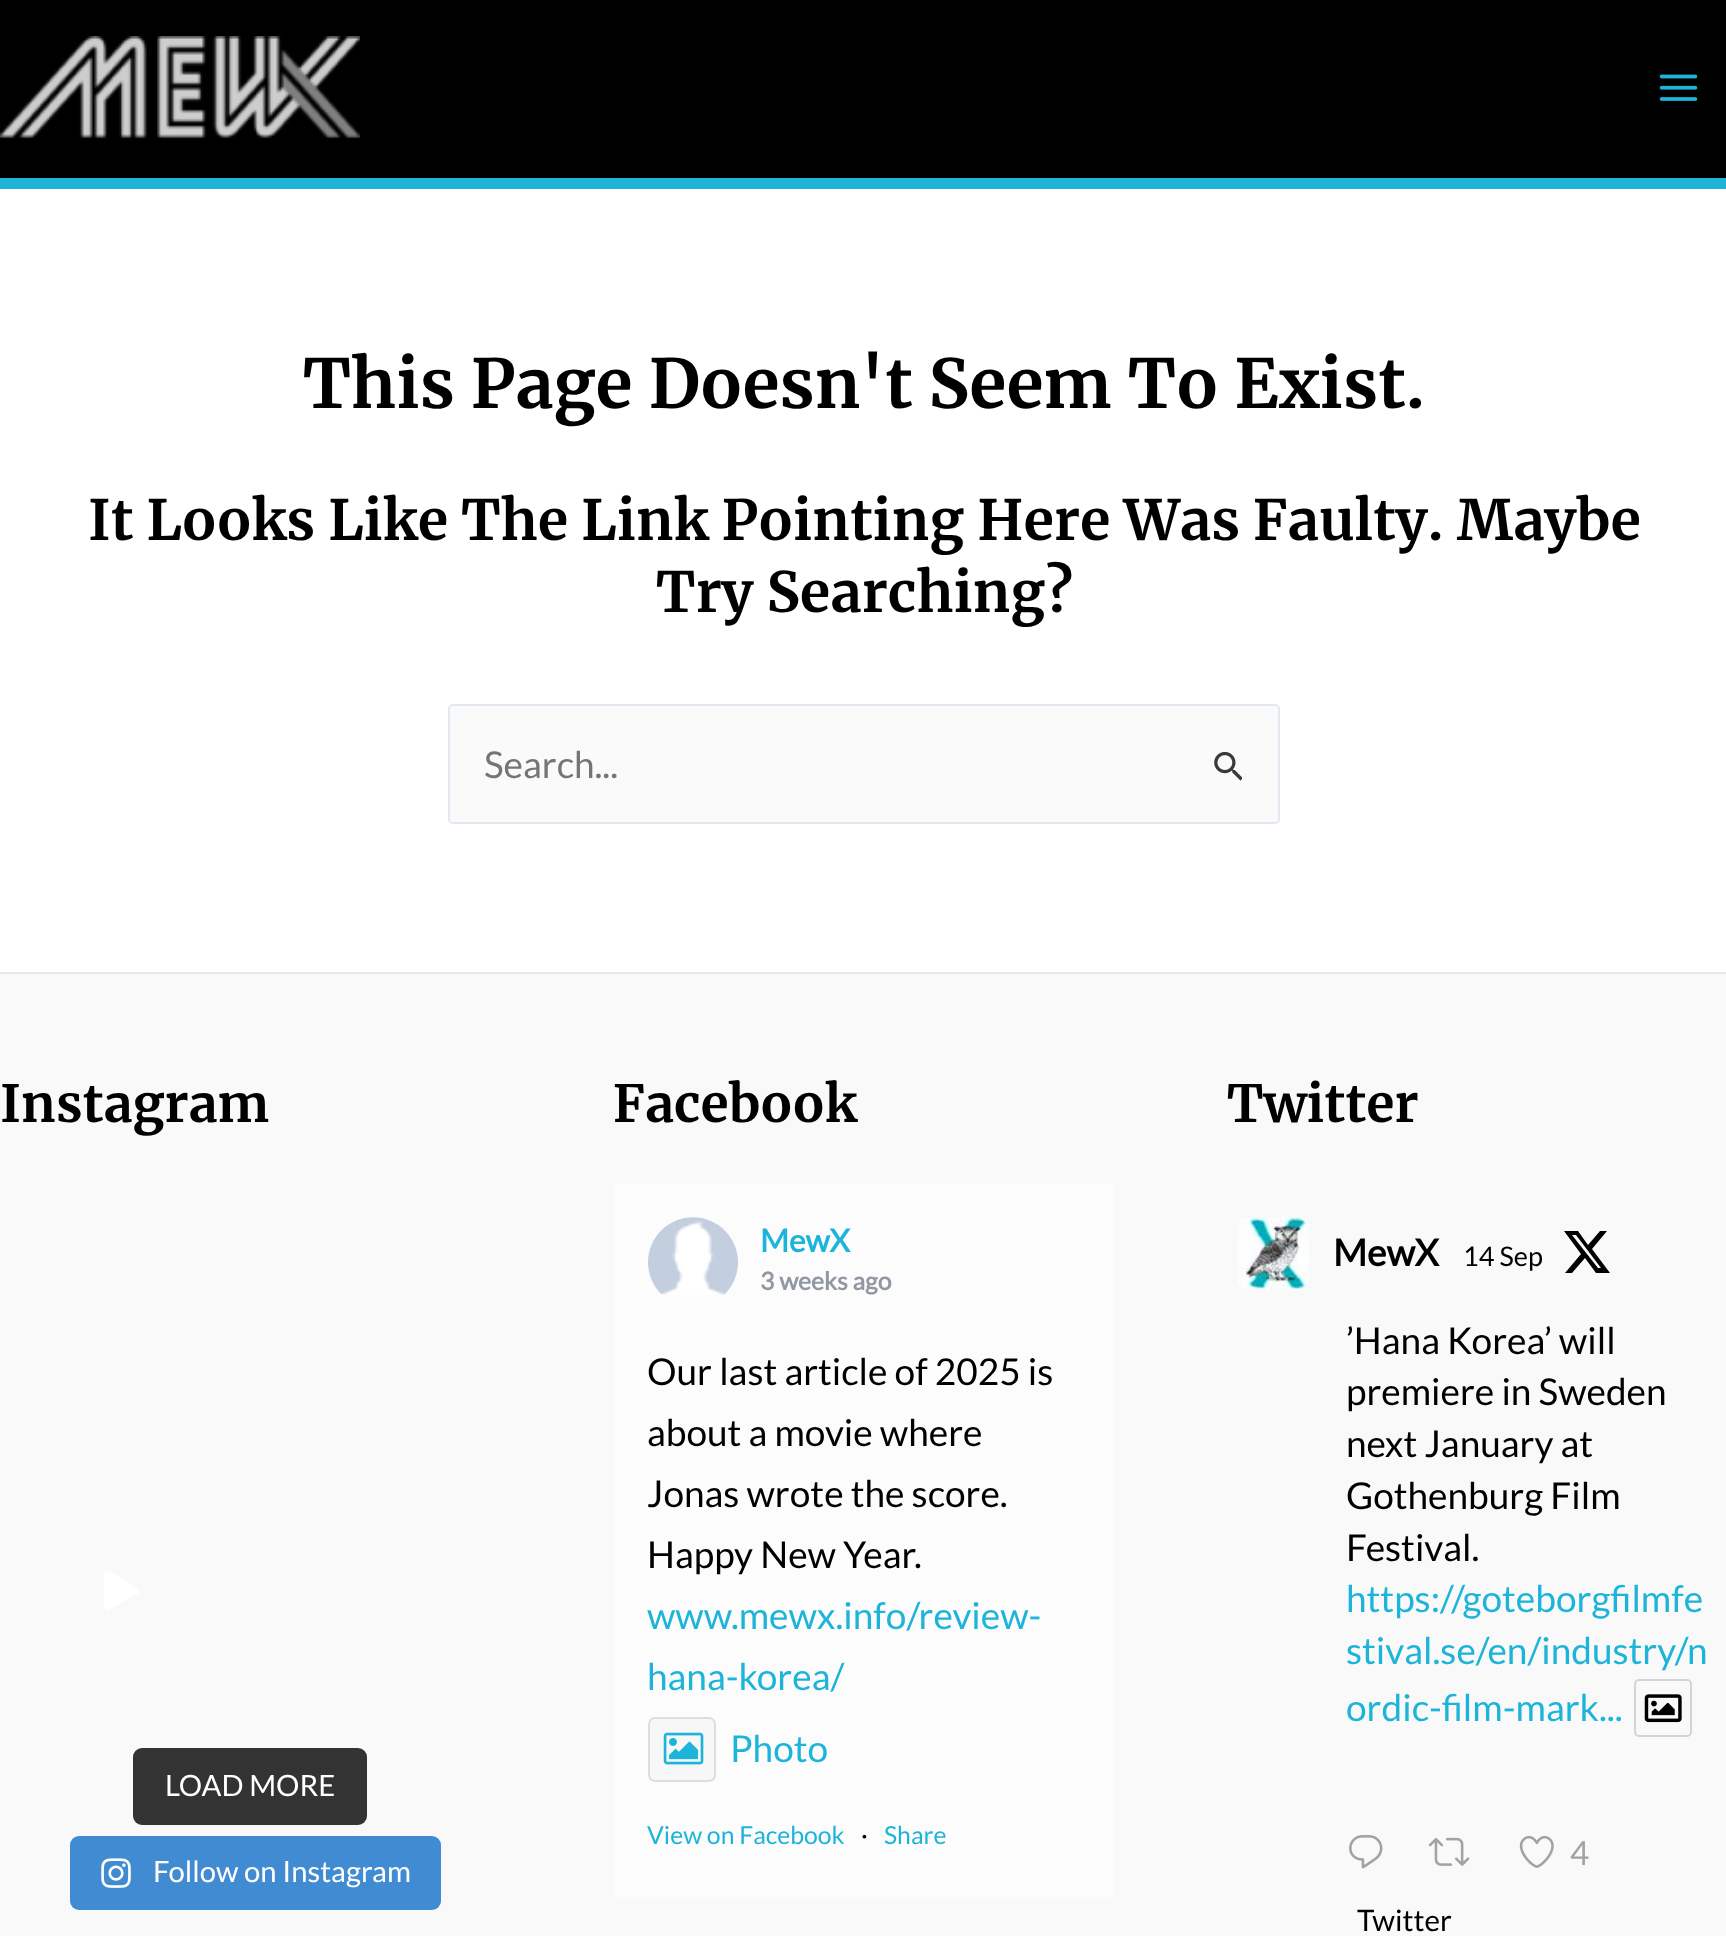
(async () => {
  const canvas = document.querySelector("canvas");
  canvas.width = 1726;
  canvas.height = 1936;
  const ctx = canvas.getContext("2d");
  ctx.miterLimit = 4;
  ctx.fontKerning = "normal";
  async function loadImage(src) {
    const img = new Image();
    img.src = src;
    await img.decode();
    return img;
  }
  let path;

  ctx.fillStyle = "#ffffff";
  ctx.fillRect(0, 0, 1726, 1936);
  ctx.fillStyle = "#000000";
  ctx.fillRect(0, 0, 1726, 178);
  ctx.fillStyle = "#1db4da";
  ctx.fillRect(0, 178, 1726, 11);
  ctx.drawImage(await loadImage("img/1.png"), 0, 36, 360, 103);
  ctx.drawImage(await loadImage("img/2.png"), 1659, 74, 39, 27);
  ctx.fillStyle = "#fafafa";
  ctx.beginPath();
  ctx.roundRect(449, 705, 830, 118, 4);
  ctx.fill();
  ctx.strokeStyle = "#e2e8f0";
  ctx.lineWidth = 2;
  ctx.stroke();
  ctx.drawImage(await loadImage("img/3.png"), 1214, 751, 28, 30);
  ctx.fillStyle = "#f9f9f9";
  ctx.fillRect(0, 974, 1726, 962);
  ctx.fillStyle = "#e2e8f0";
  ctx.fillRect(0, 972, 1726, 2);
  ctx.save();
  ctx.beginPath();
  ctx.rect(104, 1571, 36, 40);
  ctx.clip();
  ctx.fillStyle = "#ffffff";
  path = new Path2D("M137 1587L109 1571C107 1570 104 1571 104 1574V1607C104 1610 107 1612 109 1610L137 1594C140 1593 140 1589 137 1587Z");
  ctx.fill(path);
  ctx.restore();
  ctx.fillStyle = "#333333";
  ctx.beginPath();
  ctx.roundRect(133, 1748, 234, 77, 9);
  ctx.fill();
  ctx.fillStyle = "#408bd1";
  ctx.beginPath();
  ctx.roundRect(70, 1836, 371, 74, 9);
  ctx.fill();
  ctx.drawImage(await loadImage("img/4.png"), 101, 1858, 30, 30);
  ctx.fillStyle = "#fcfcfc";
  ctx.fillRect(614, 1184, 500, 715);
  ctx.drawImage(await loadImage("img/5.png"), 648, 1217, 90, 78);
  ctx.fillStyle = "#f7f7f7";
  ctx.beginPath();
  ctx.roundRect(649, 1718, 66, 63, 6);
  ctx.fill();
  ctx.strokeStyle = "#dedede";
  ctx.stroke();
  ctx.drawImage(await loadImage("img/6.png"), 663, 1732, 41, 33);
  ctx.drawImage(await loadImage("img/7.png"), 1238, 1217, 71, 73);
  ctx.fillStyle = "#000000";
  path = new Path2D("M1600 1231H1607L1592 1249L1610 1273H1596L1585 1258L1572 1273H1565L1581 1254L1564 1231H1578L1588 1245ZM1598 1268H1601L1576 1235H1572Z");
  ctx.fill(path);
  ctx.beginPath();
  ctx.roundRect(1635, 1680, 56, 56, 4);
  ctx.strokeStyle = "#d4d4d4";
  ctx.stroke();
  ctx.drawImage(await loadImage("img/8.png"), 1644, 1694, 38, 29);
  ctx.drawImage(await loadImage("img/9.png"), 1349, 1835, 34, 34);
  ctx.drawImage(await loadImage("img/10.png"), 1428, 1837, 42, 29);
  ctx.drawImage(await loadImage("img/11.png"), 1519, 1835, 35, 33);
  ctx.font = "bold 67.5px Merriweather";
  ctx.fillText("This Page Doesn't Seem To Exist.", 303, 408);
  ctx.font = "bold 55.4px Merriweather";
  ctx.fillText("It Looks Like The Link Pointing Here Was Faulty. Maybe", 88, 540);
  ctx.fillText("Try Searching?", 656, 612);
  ctx.font = "37px Lato";
  ctx.fillStyle = "#757575";
  ctx.fillText("Search...", 484, 778);
  ctx.font = "bold 51.25px Merriweather";
  ctx.fillStyle = "#000000";
  ctx.fillText("Instagram", 0, 1122);
  ctx.font = "29.25px Lato";
  ctx.fillStyle = "#ffffff";
  ctx.fillText("LOAD MORE", 165, 1796);
  ctx.fillText("Follow on Instagram", 153, 1882);
  ctx.font = "bold 51.25px Merriweather";
  ctx.fillStyle = "#000000";
  ctx.fillText("Facebook", 613, 1122);
  ctx.font = "bold 31.5px Lato";
  ctx.fillStyle = "#1db4da";
  ctx.fillText("MewX", 760, 1252);
  ctx.font = "bold 24.75px Lato";
  ctx.fillStyle = "#9197a3";
  ctx.fillText("3 weeks ago", 760, 1290);
  ctx.font = "37px Lato";
  ctx.fillStyle = "#000000";
  for (const [text, x, y] of [
    ["Our last article of 2025 is", 647, 1385],
    ["about a movie where", 647, 1446],
    ["Jonas wrote the score.", 647, 1507],
    ["Happy New Year.", 647, 1568],
  ]) {
    ctx.fillText(text, x, y);
  }
  ctx.fillStyle = "#1db4da";
  for (const [text, x, y] of [
    ["www.mewx.info/review-", 647, 1629],
    ["hana-korea/", 647, 1690],
    ["Photo", 730, 1762],
  ]) {
    ctx.fillText(text, x, y);
  }
  ctx.font = "24.75px Lato";
  ctx.fillText("View on Facebook", 647, 1844);
  ctx.fillStyle = "#000000";
  ctx.fillText("·", 861, 1844);
  ctx.fillStyle = "#1db4da";
  ctx.fillText("Share", 884, 1844);
  ctx.font = "bold 51.25px Merriweather";
  ctx.fillStyle = "#000000";
  ctx.fillText("Twitter", 1227, 1122);
  ctx.font = "bold 37px Lato";
  ctx.fillText("MewX", 1333, 1266);
  ctx.font = "27px Lato";
  ctx.fillText("14 Sep", 1463, 1266);
  ctx.font = "37px Lato";
  for (const [text, x, y] of [
    ["’Hana Korea’ will", 1346, 1354],
    ["premiere in Sweden", 1346, 1405],
    ["next January at", 1346, 1457],
    ["Gothenburg Film", 1346, 1509],
    ["Festival.", 1346, 1561],
  ]) {
    ctx.fillText(text, x, y);
  }
  ctx.fillStyle = "#1db4da";
  for (const [text, x, y] of [
    ["https://goteborgfilmfe", 1346, 1612],
    ["stival.se/en/industry/n", 1346, 1664],
    ["ordic-film-mark...", 1346, 1721],
  ]) {
    ctx.fillText(text, x, y);
  }
  ctx.font = "33px Lato";
  ctx.fillStyle = "#a2a2a2";
  ctx.fillText("4", 1570, 1865);
  ctx.font = "29.5px Lato";
  ctx.fillStyle = "#000000";
  ctx.fillText("Twitter", 1357, 1931);
})();
